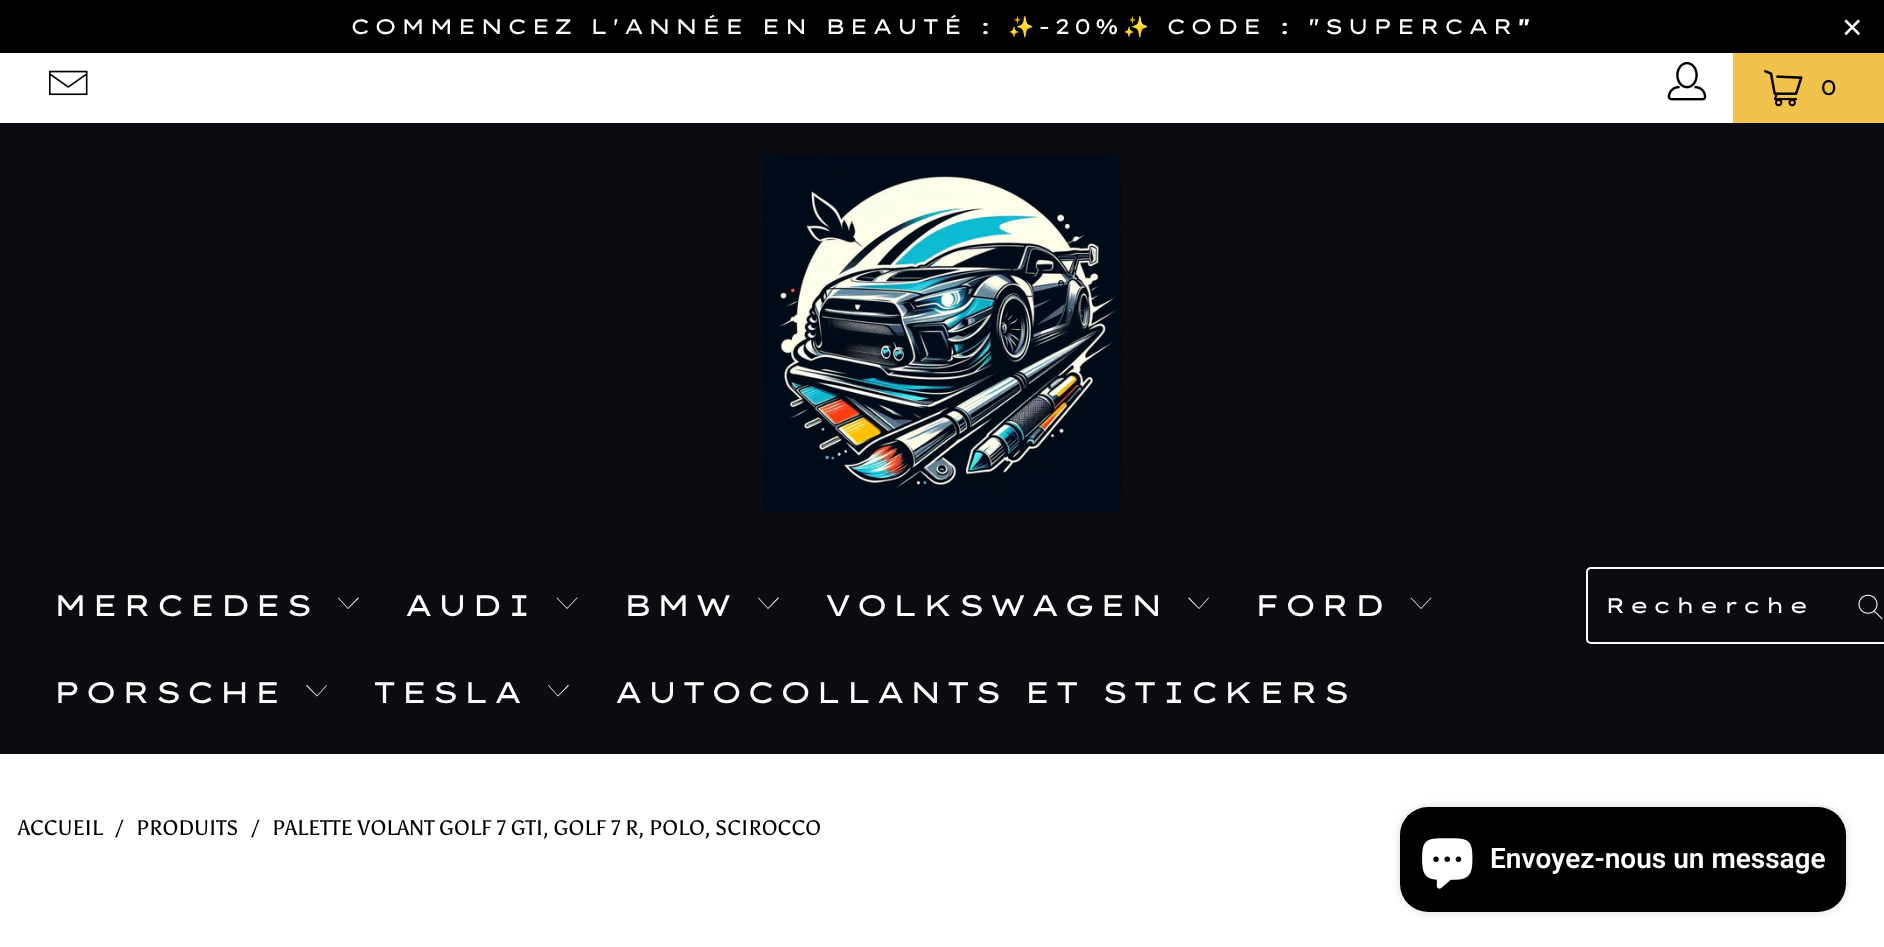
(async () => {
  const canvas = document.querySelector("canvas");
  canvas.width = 1884;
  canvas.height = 947;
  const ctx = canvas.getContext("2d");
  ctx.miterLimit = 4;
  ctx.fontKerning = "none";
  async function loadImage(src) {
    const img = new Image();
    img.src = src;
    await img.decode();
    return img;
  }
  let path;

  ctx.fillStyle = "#ffffff";
  ctx.fillRect(0, 0, 1884, 947);
  ctx.fillStyle = "#000000";
  ctx.fillRect(0, 0, 1884, 53);
  ctx.drawImage(await loadImage("img/1.png"), 49, 70, 39, 26);
  ctx.drawImage(await loadImage("img/2.png"), 1667, 61, 40, 40);
  ctx.fillStyle = "#f0c14b";
  ctx.fillRect(1733, 53, 151, 70);
  ctx.drawImage(await loadImage("img/3.png"), 1764, 70, 39, 37);
  ctx.fillStyle = "#0c0b10";
  ctx.fillRect(0, 123, 1884, 631);
  ctx.drawImage(await loadImage("img/4.png"), 763, 154, 359, 359);
  ctx.fillStyle = "#ffffff";
  path = new Path2D("M348 609L338 598L338.5 597.5L348 608L358 597.5L359 598Z");
  ctx.fill(path);
  path = new Path2D("M567 609L556.5 598L557 597.5L567 608L577 597.5L577.5 598Z");
  ctx.fill(path);
  path = new Path2D("M768 609L758 598L758.5 597.5L768 608L778 597.5L779 598Z");
  ctx.fill(path);
  path = new Path2D("M1199 609L1188 598L1189 597.5L1199 608L1208.5 597.5L1209 598Z");
  ctx.fill(path);
  path = new Path2D("M1421 609L1410.5 598L1411 597.5L1421 608L1431 597.5L1431.5 598Z");
  ctx.fill(path);
  path = new Path2D("M317 696.5L306 685.5L307 685L317 695.5L326.5 685L327 685.5Z");
  ctx.fill(path);
  path = new Path2D("M558 696.5L548 685.5L548.5 685L558 695.5L568 685L569 685.5Z");
  ctx.fill(path);
  ctx.beginPath();
  ctx.roundRect(1587, 568, 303, 75, 4);
  ctx.strokeStyle = "#ffffff";
  ctx.lineWidth = 2;
  ctx.stroke();
  ctx.drawImage(await loadImage("img/5.png"), 1858, 594, 25, 26);
  ctx.fillStyle = "rgba(0, 0, 0, 0.15)";
  ctx.filter = "blur(4.5px)";
  ctx.beginPath();
  ctx.roundRect(1400, 807, 446, 105, 28);
  ctx.fill();
  ctx.filter = "none";
  ctx.fillStyle = "#000000";
  ctx.beginPath();
  ctx.roundRect(1400, 807, 446, 105, 28);
  ctx.fill();
  ctx.drawImage(await loadImage("img/6.png"), 1422, 838, 51, 51);
  ctx.letterSpacing = "3.5px";
  ctx.font = "21px Lexend Zetta";
  ctx.fillStyle = "#ffffff";
  ctx.fillText("COMMENCEZ L'ANNÉE EN BEAUTÉ :", 350, 34);
  ctx.font = "21px Noto Color Emoji";
  ctx.fillText("✨", 1008, 34);
  ctx.font = "21px Lexend Zetta";
  ctx.fillText("-20%", 1038, 34);
  ctx.font = "21px Noto Color Emoji";
  ctx.fillText("✨", 1123, 34);
  ctx.font = "21px Lexend Zetta";
  ctx.fillText("CODE : \"SUPERCAR", 1166, 34);
  ctx.font = "bold 21px Lexend Zetta";
  ctx.fillText("\"", 1517, 34);
  ctx.font = "35px Liberation Sans";
  ctx.fillText("×", 1842, 39);
  ctx.font = "21px Lexend Zetta";
  ctx.fillStyle = "#000000";
  ctx.fillText("0", 1820, 95);
  ctx.font = "29.75px Lexend Zetta";
  ctx.fillStyle = "#ffffff";
  for (const [text, x, y] of [
    ["MERCEDES", 53, 616],
    ["AUDI", 404, 616],
    ["BMW", 623, 616],
    ["VOLKSWAGEN", 824, 616],
    ["FORD", 1254, 616],
    ["PORSCHE", 53, 703],
    ["TESLA", 372, 703],
    ["AUTOCOLLANTS ET STICKERS", 614, 703],
  ]) {
    ctx.fillText(text, x, y);
  }
  ctx.font = "21px Lexend Zetta";
  ctx.fillText("Recherche", 1605, 613);
  ctx.letterSpacing = "0px";
  ctx.font = "21px Asul";
  ctx.fillStyle = "#000000";
  for (const [text, x, y] of [
    ["ACCUEIL", 18, 835],
    ["/", 116, 835],
    ["PRODUITS", 136, 835],
    ["/", 252, 835],
    ["PALETTE VOLANT GOLF 7 GTI, GOLF 7 R, POLO, SCIROCCO", 272, 835],
  ]) {
    ctx.fillText(text, x, y);
  }
  ctx.font = "600 28px Roboto";
  ctx.fillStyle = "#ffffff";
  ctx.fillText("Envoyez-nous un message", 1490, 868);
})();
